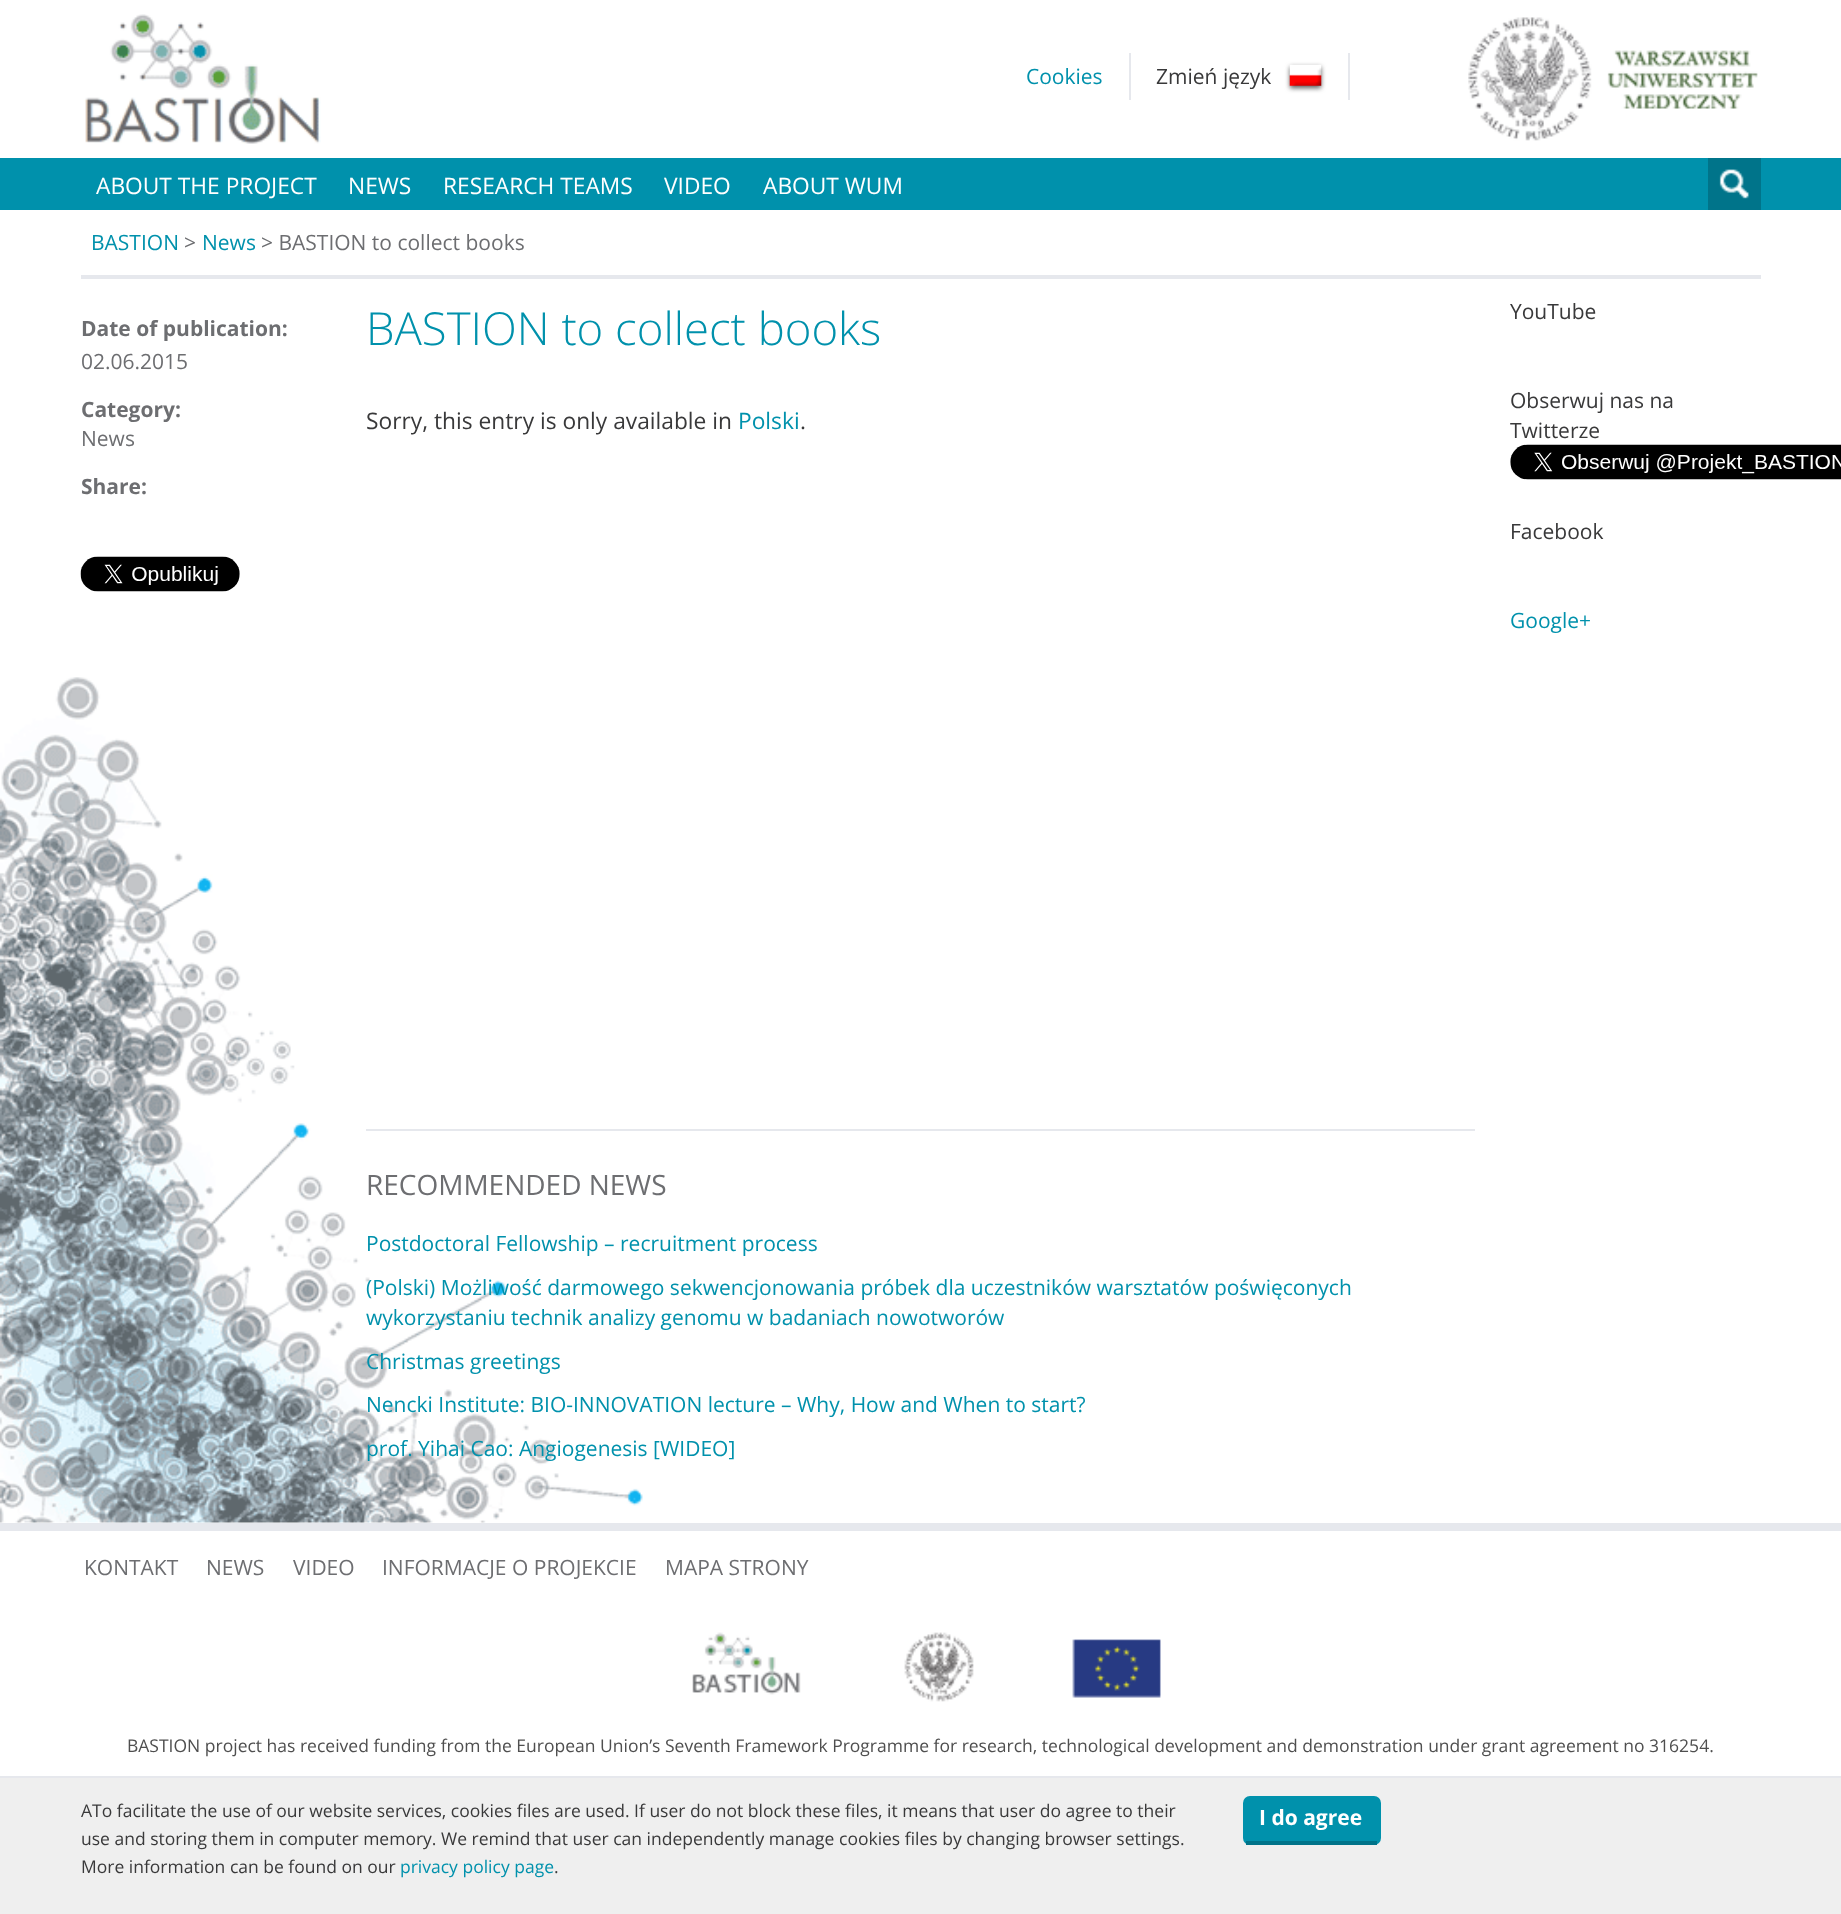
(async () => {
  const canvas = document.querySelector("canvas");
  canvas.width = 1841;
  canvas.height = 1914;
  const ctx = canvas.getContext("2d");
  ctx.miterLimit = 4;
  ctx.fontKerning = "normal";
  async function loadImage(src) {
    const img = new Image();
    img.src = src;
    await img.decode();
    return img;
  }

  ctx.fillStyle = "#ffffff";
  ctx.fillRect(0, 0, 1841, 1914);
  ctx.drawImage(await loadImage("img/1.png"), 84, 14, 237, 130);
  ctx.fillStyle = "#e6e8ed";
  ctx.fillRect(1348, 53, 2, 47);
  ctx.fillRect(1129, 53, 2, 47);
  ctx.fillStyle = "#565656";
  ctx.filter = "blur(2.5px)";
  ctx.beginPath();
  ctx.rect(1290, 67, 31, 21);
  ctx.fill();
  ctx.filter = "none";
  ctx.drawImage(await loadImage("img/2.png"), 1289, 64, 33, 22);
  ctx.drawImage(await loadImage("img/3.png"), 1468, 17, 290, 124);
  ctx.fillStyle = "#0091ac";
  ctx.fillRect(0, 158, 1841, 52);
  ctx.fillStyle = "#00748a";
  ctx.fillRect(1708, 158, 53, 52);
  ctx.drawImage(await loadImage("img/4.png"), 1719, 169, 30, 30);
  ctx.fillStyle = "#e6e8ed";
  ctx.fillRect(81, 275, 1680, 4);
  ctx.drawImage(await loadImage("img/5.png"), 0, 677, 643, 846);
  ctx.drawImage(await loadImage("img/6.png"), 80, 556, 160, 36);
  ctx.fillRect(366, 1129, 1109, 2);
  ctx.drawImage(await loadImage("img/7.png"), 1510, 444, 331, 36);
  ctx.fillRect(0, 1523, 1841, 8);
  ctx.drawImage(await loadImage("img/8.png"), 692, 1632, 469, 70);
  ctx.fillStyle = "#efefef";
  ctx.fillRect(0, 1778, 1841, 136);
  ctx.fillStyle = "#e6e8ed";
  ctx.fillRect(0, 1776, 1841, 2);
  ctx.fillStyle = "#0091ac";
  ctx.beginPath();
  ctx.roundRect(1243, 1796, 138, 49, 7);
  ctx.fill();
  ctx.fillStyle = "#007389";
  ctx.fillRect(1246, 1841, 131, 4);
  ctx.font = "21px Open Sans";
  ctx.fillStyle = "#0091ac";
  ctx.fillText("Cookies", 1026, 84);
  ctx.fillStyle = "#39393a";
  ctx.fillText("Zmień język", 1156, 84);
  ctx.font = "22.75px Open Sans";
  ctx.fillStyle = "#ffffff";
  for (const [text, x, y] of [
    ["ABOUT THE PROJECT", 96, 194],
    ["NEWS", 348, 194],
    ["RESEARCH TEAMS", 443, 194],
    ["VIDEO", 664, 194],
    ["ABOUT WUM", 763, 194],
  ]) {
    ctx.fillText(text, x, y);
  }
  ctx.font = "21px Open Sans";
  ctx.fillStyle = "#0091ac";
  ctx.fillText("BASTION", 91, 250);
  ctx.fillStyle = "#6d6e71";
  ctx.fillText(">", 184, 250);
  ctx.fillStyle = "#0091ac";
  ctx.fillText("News", 202, 250);
  ctx.fillStyle = "#6d6e71";
  ctx.fillText("> BASTION to collect books", 261, 250);
  ctx.font = "bold 21px Open Sans";
  ctx.fillText("Date of publication:", 81, 336);
  ctx.font = "21px Open Sans";
  ctx.fillText("02.06.2015", 81, 369);
  ctx.font = "bold 21px Open Sans";
  ctx.fillText("Category:", 81, 417);
  ctx.font = "21px Open Sans";
  ctx.fillText("News", 81, 446);
  ctx.font = "bold 21px Open Sans";
  ctx.fillText("Share:", 81, 494);
  ctx.font = "300 45.5px Open Sans";
  ctx.fillStyle = "#0091ac";
  ctx.fillText("BASTION to collect books", 366, 345);
  ctx.font = "22.75px Open Sans";
  ctx.fillStyle = "#39393a";
  ctx.fillText("Sorry, this entry is only available in", 366, 429);
  ctx.fillStyle = "#0091ac";
  ctx.fillText("Polski", 738, 429);
  ctx.fillStyle = "#39393a";
  ctx.fillText(".", 800, 429);
  ctx.font = "28px Open Sans";
  ctx.fillStyle = "#6d6e71";
  ctx.fillText("RECOMMENDED NEWS", 366, 1195);
  ctx.font = "21px Open Sans";
  ctx.fillStyle = "#0091ac";
  for (const [text, x, y] of [
    ["Postdoctoral Fellowship – recruitment process", 366, 1251],
    ["(Polski) Możliwość darmowego sekwencjonowania próbek dla uczestników warsztatów poświęconych", 366, 1295],
    ["wykorzystaniu technik analizy genomu w badaniach nowotworów", 366, 1325],
    ["Christmas greetings", 366, 1369],
    ["Nencki Institute: BIO-INNOVATION lecture – Why, How and When to start?", 366, 1412],
    ["prof. Yihai Cao: Angiogenesis [WIDEO]", 366, 1456],
  ]) {
    ctx.fillText(text, x, y);
  }
  ctx.fillStyle = "#39393a";
  for (const [text, x, y] of [
    ["YouTube", 1510, 319],
    ["Obserwuj nas na", 1510, 408],
    ["Twitterze", 1510, 438],
    ["Facebook", 1510, 539],
  ]) {
    ctx.fillText(text, x, y);
  }
  ctx.fillStyle = "#0091ac";
  ctx.fillText("Google+", 1510, 628);
  ctx.fillStyle = "#6d6e71";
  for (const [text, x, y] of [
    ["KONTAKT", 84, 1575],
    ["NEWS", 206, 1575],
    ["VIDEO", 293, 1575],
    ["INFORMACJE O PROJEKCIE", 382, 1575],
    ["MAPA STRONY", 665, 1575],
  ]) {
    ctx.fillText(text, x, y);
  }
  ctx.font = "17.5px Open Sans";
  ctx.fillStyle = "#4f4f4f";
  ctx.fillText("BASTION project has received funding from the European Union’s Seventh Framework Programme for research, technological development and demonstration under grant agreement no 316254.", 127, 1752);
  ctx.fillStyle = "#39393a";
  for (const [text, x, y] of [
    ["ATo facilitate the use of our website services, cookies files are used. If user do not block these files, it means that user do agree to their", 81, 1817],
    ["use and storing them in computer memory. We remind that user can independently manage cookies files by changing browser settings.", 81, 1845],
    ["More information can be found on our", 81, 1873],
  ]) {
    ctx.fillText(text, x, y);
  }
  ctx.fillStyle = "#0091ac";
  ctx.fillText("privacy policy page", 400, 1873);
  ctx.fillStyle = "#39393a";
  ctx.fillText(".", 554, 1873);
  ctx.font = "bold 21px Open Sans";
  ctx.fillStyle = "#ffffff";
  ctx.fillText("I do agree", 1259, 1825);
})();
